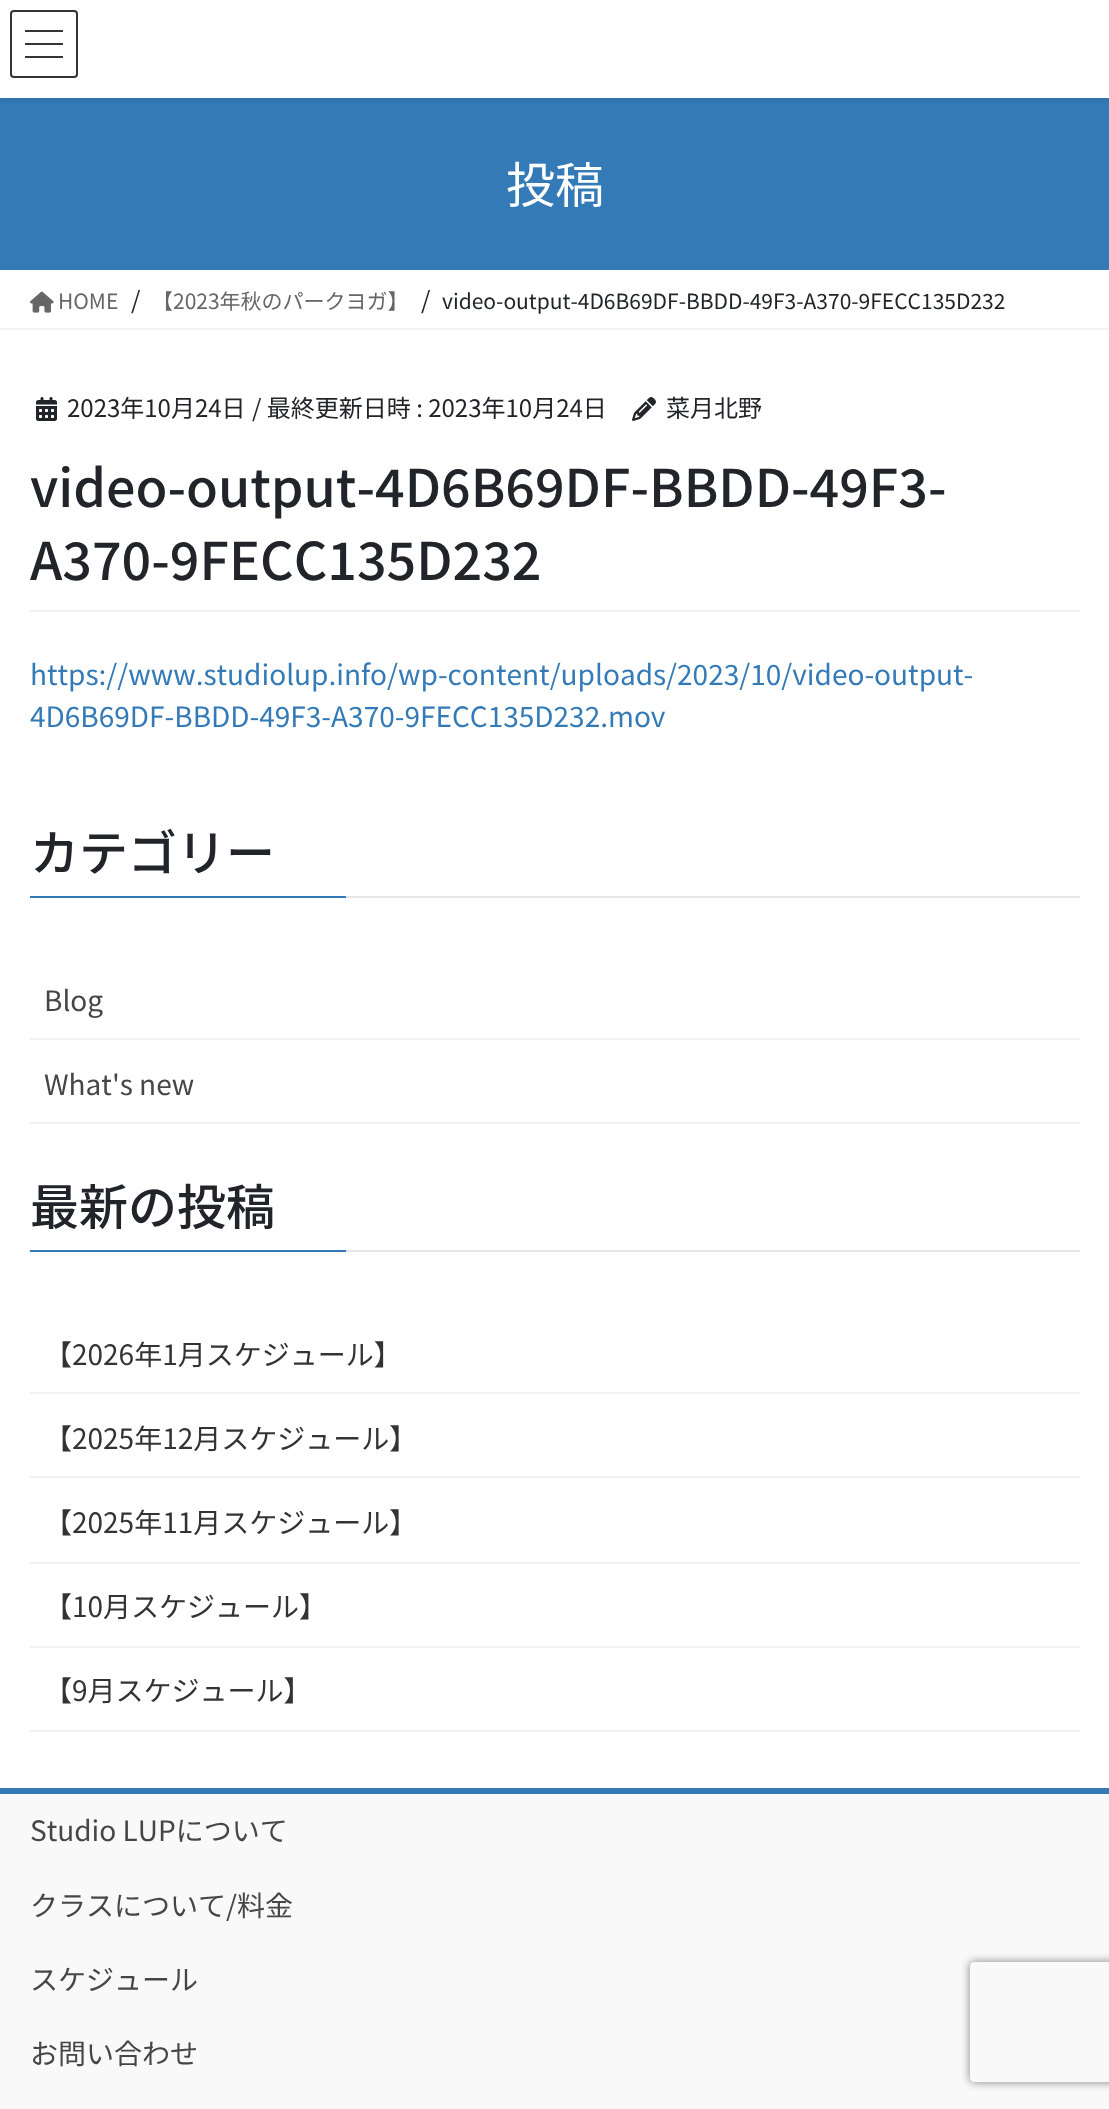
(async () => {
  const canvas = document.querySelector("canvas");
  canvas.width = 1109;
  canvas.height = 2109;
  const ctx = canvas.getContext("2d");
  ctx.miterLimit = 4;
  ctx.fontKerning = "none";
  async function loadImage(src) {
    const img = new Image();
    img.src = src;
    await img.decode();
    return img;
  }
  let path;

  ctx.fillStyle = "#ffffff";
  ctx.fillRect(0, 0, 1109, 2109);
  ctx.fillStyle = "#337ab7";
  ctx.fillRect(0, 98, 1109, 172);
  ctx.save();
  ctx.beginPath();
  ctx.rect(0, 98, 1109, 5);
  ctx.clip();
  ctx.fillStyle = "rgba(0, 0, 0, 0.1)";
  ctx.filter = "blur(3px)";
  ctx.beginPath();
  ctx.rect(0, 2, 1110, 98);
  ctx.fill();
  ctx.filter = "none";
  ctx.restore();
  for (const [x, y, w, h, color] of [
    [25, 30, 38, 2, "#333333"],
    [25, 43, 38, 2, "#333333"],
    [25, 56, 38, 2, "#333333"],
  ]) {
    ctx.fillStyle = color;
    ctx.fillRect(x, y, w, h);
  }
  ctx.beginPath();
  ctx.roundRect(11, 11, 66, 66, 3);
  ctx.strokeStyle = "#333333";
  ctx.lineWidth = 2;
  ctx.stroke();
  ctx.fillStyle = "#f2f2f2";
  ctx.fillRect(0, 328, 1109, 2);
  ctx.drawImage(await loadImage("img/1.png"), 30, 291, 24, 22);
  ctx.fillRect(30, 610, 1050, 2);
  ctx.drawImage(await loadImage("img/2.png"), 36, 397, 21, 24);
  ctx.drawImage(await loadImage("img/3.png"), 632, 397, 24, 24);
  for (const [x, y, w, h, color] of [
    [346, 896, 734, 2, "#e6e6e6"],
    [30, 896, 316, 2, "#337ab7"],
    [30, 1038, 1050, 2, "#f2f2f2"],
    [30, 1122, 1050, 2, "#f2f2f2"],
    [346, 1250, 734, 2, "#e6e6e6"],
    [30, 1250, 316, 2, "#337ab7"],
    [30, 1392, 1050, 2, "#f2f2f2"],
    [30, 1476, 1050, 2, "#f2f2f2"],
    [30, 1562, 1050, 2, "#f2f2f2"],
    [30, 1646, 1050, 2, "#f2f2f2"],
    [30, 1730, 1050, 2, "#f2f2f2"],
    [0, 1794, 1109, 315, "#f9f9f9"],
    [0, 1788, 1109, 6, "#337ab7"],
  ]) {
    ctx.fillStyle = color;
    ctx.fillRect(x, y, w, h);
  }
  ctx.save();
  path = new Path2D("M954 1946H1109V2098H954ZM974 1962H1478C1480 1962 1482 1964 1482 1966V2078C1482 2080 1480 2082 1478 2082H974C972 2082 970 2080 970 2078V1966C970 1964 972 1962 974 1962Z");
  ctx.clip(path, "evenodd");
  ctx.fillStyle = "#808080";
  ctx.filter = "blur(5px)";
  ctx.beginPath();
  ctx.roundRect(970, 1962, 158, 120, 4);
  ctx.fill();
  ctx.filter = "none";
  ctx.restore();
  ctx.font = "49px Noto Sans JP";
  ctx.fillStyle = "#ffffff";
  ctx.fillText("投稿", 506, 203);
  ctx.font = "21px Noto Sans JP";
  ctx.fillStyle = "#666666";
  ctx.fillText("HOME", 58, 309);
  ctx.font = "24px Noto Sans JP";
  ctx.fillStyle = "#212529";
  ctx.fillText("/", 131, 309);
  ctx.font = "21px Noto Sans JP";
  ctx.fillStyle = "#666666";
  ctx.fillText("【2023年秋のパークヨガ】", 152, 309);
  ctx.font = "24px Noto Sans JP";
  ctx.fillStyle = "#212529";
  ctx.fillText("/", 421, 309);
  ctx.font = "21px Noto Sans JP";
  ctx.fillText("video-output-4D6B69DF-BBDD-49F3-A370-9FECC135D232", 442, 309);
  ctx.font = "24px Noto Sans JP";
  for (const [text, x, y] of [
    ["2023年10月24日", 67, 417],
    ["/ 最終更新日時 : 2023年10月24日", 252, 417],
    ["菜月北野", 666, 417],
  ]) {
    ctx.fillText(text, x, y);
  }
  ctx.font = "500 52px Noto Sans JP";
  ctx.fillText("video-output-4D6B69DF-BBDD-49F3-", 30, 507);
  ctx.fillText("A370-9FECC135D232", 30, 580);
  ctx.font = "28px Noto Sans JP";
  ctx.fillStyle = "#337ab7";
  ctx.fillText("https://www.studiolup.info/wp-content/uploads/2023/10/video-output-", 30, 685);
  ctx.fillText("4D6B69DF-BBDD-49F3-A370-9FECC135D232.mov", 30, 727);
  ctx.font = "500 49px Noto Sans JP";
  ctx.fillStyle = "#212529";
  ctx.fillText("カテゴリー", 30, 871);
  ctx.font = "28px Noto Sans JP";
  ctx.fillStyle = "#464646";
  ctx.fillText("Blog", 44, 1011);
  ctx.fillText("What's new", 44, 1095);
  ctx.font = "500 49px Noto Sans JP";
  ctx.fillStyle = "#212529";
  ctx.fillText("最新の投稿", 30, 1225);
  ctx.font = "28px Noto Sans JP";
  ctx.fillStyle = "#333333";
  for (const [text, x, y] of [
    ["【2026年1月スケジュール】", 44, 1365],
    ["【2025年12月スケジュール】", 44, 1449],
    ["【2025年11月スケジュール】", 44, 1533],
    ["【10月スケジュール】", 44, 1617],
    ["【9月スケジュール】", 44, 1701],
  ]) {
    ctx.fillText(text, x, y);
  }
  ctx.fillStyle = "#464646";
  for (const [text, x, y] of [
    ["Studio LUPについて", 30, 1841],
    ["クラスについて/料金", 30, 1916],
    ["スケジュール", 30, 1990],
    ["お問い合わせ", 30, 2064],
  ]) {
    ctx.fillText(text, x, y);
  }
})();
